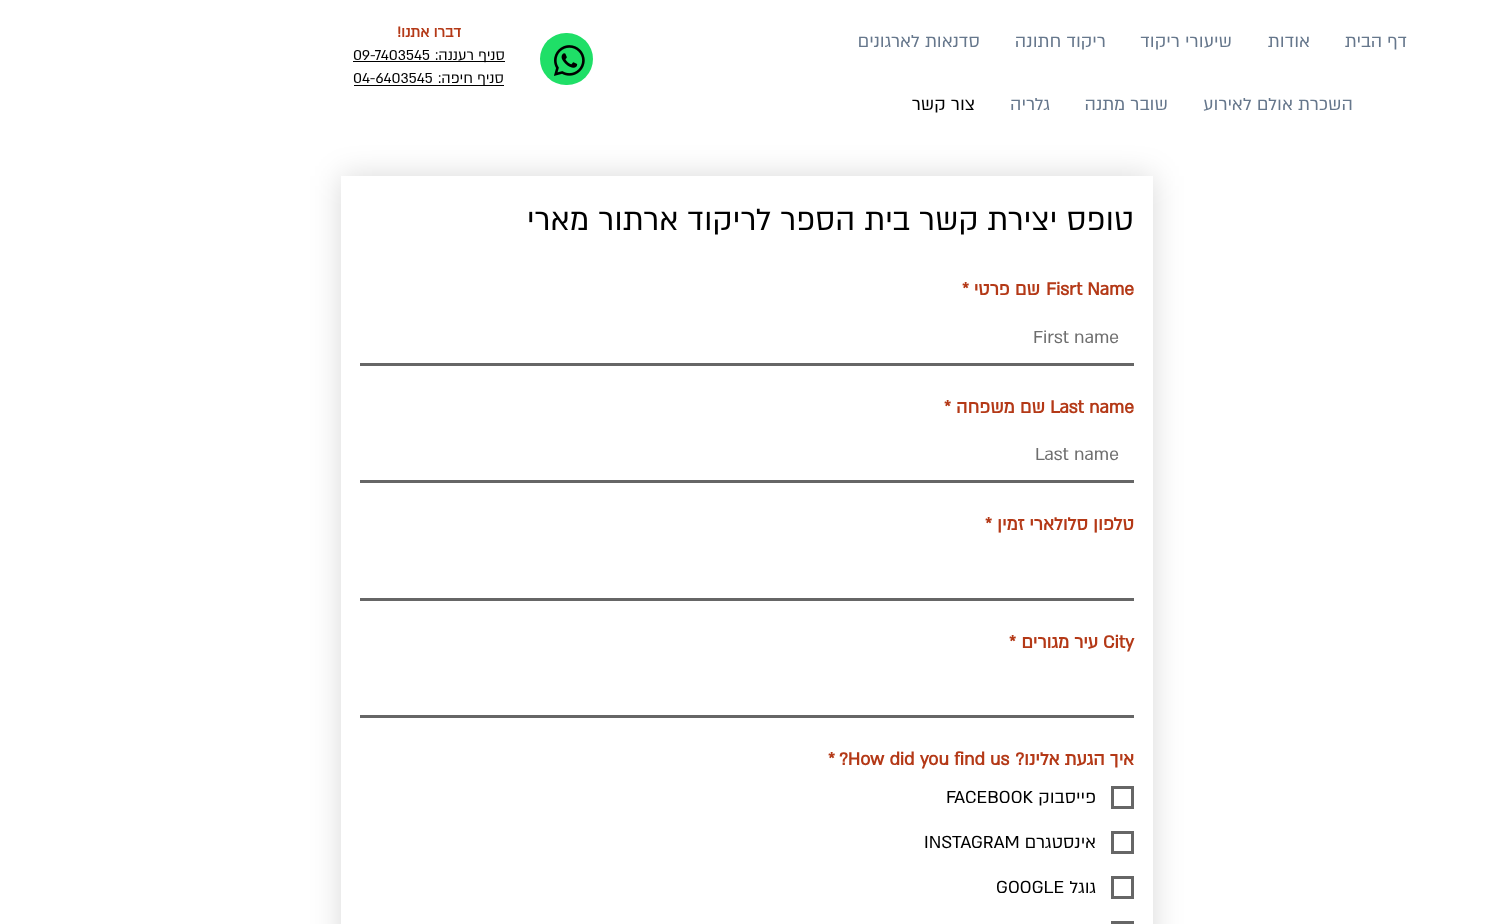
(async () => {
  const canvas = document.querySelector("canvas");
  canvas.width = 1493;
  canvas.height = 924;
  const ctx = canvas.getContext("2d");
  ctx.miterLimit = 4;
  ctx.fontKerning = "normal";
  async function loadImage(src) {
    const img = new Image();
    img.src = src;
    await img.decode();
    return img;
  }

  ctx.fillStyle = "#ffffff";
  ctx.fillRect(0, 0, 1493, 924);
  ctx.fillStyle = "#1fdf67";
  ctx.beginPath();
  ctx.roundRect(540, 33, 53, 52, 26);
  ctx.fill();
  ctx.drawImage(await loadImage("img/1.png"), 554, 45, 31, 31);
  ctx.fillStyle = "#000000";
  ctx.fillRect(353, 61, 152, 1);
  ctx.fillRect(354, 85, 150, 1);
  ctx.fillStyle = "rgba(0, 0, 0, 0.15)";
  ctx.filter = "blur(15.5px)";
  ctx.beginPath();
  ctx.rect(341, 176, 812, 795);
  ctx.fill();
  ctx.filter = "none";
  for (const [x, y, w, h, color] of [
    [341, 176, 812, 748, "#ffffff"],
    [360, 363, 774, 3, "#666666"],
    [360, 480, 774, 3, "#666666"],
    [360, 598, 774, 3, "#666666"],
    [360, 715, 774, 3, "#666666"],
  ]) {
    ctx.fillStyle = color;
    ctx.fillRect(x, y, w, h);
  }
  ctx.strokeStyle = "#666666";
  ctx.lineWidth = 3;
  ctx.strokeRect(1112.5, 787.5, 20, 20);
  ctx.strokeRect(1112.5, 832.5, 20, 20);
  ctx.strokeRect(1112.5, 877.5, 20, 20);
  ctx.strokeRect(1112.5, 922.5, 20, 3);
  ctx.direction = "rtl";
  ctx.font = "20px 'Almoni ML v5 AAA'";
  ctx.fillStyle = "#66778c";
  for (const [text, x, y] of [
    ["דף הבית", 1407, 47],
    ["אודות", 1310, 47],
    ["שיעורי ריקוד", 1232, 47],
    ["ריקוד חתונה", 1106, 47],
    ["סדנאות לארגונים", 980, 47],
    ["השכרת אולם לאירוע", 1353, 110],
    ["שובר מתנה", 1168, 110],
    ["גלריה", 1050, 110],
  ]) {
    ctx.fillText(text, x, y);
  }
  ctx.fillStyle = "#000000";
  ctx.fillText("צור קשר", 975, 110);
  ctx.font = "bold 16.5px 'Almoni ML v5 AAA'";
  ctx.fillStyle = "#b43917";
  ctx.fillText("דברו אתנו!", 461, 37);
  ctx.font = "16.5px 'Almoni ML v5 AAA'";
  ctx.fillStyle = "#000000";
  ctx.fillText("סניף רעננה:", 505, 60);
  ctx.direction = "ltr";
  ctx.fillText("09-7403545", 353, 60);
  ctx.direction = "rtl";
  ctx.fillText("סניף חיפה:", 504, 83);
  ctx.direction = "ltr";
  ctx.fillText("04-6403545", 353, 83);
  ctx.direction = "rtl";
  ctx.font = "35px 'Almoni ML v5 AAA'";
  ctx.fillText("טופס יצירת קשר בית הספר לריקוד ארתור מארי", 1134, 230);
  ctx.direction = "ltr";
  ctx.font = "bold 20px 'Almoni ML v5 AAA'";
  ctx.fillStyle = "#b43917";
  ctx.fillText("Fisrt Name", 1046, 295);
  ctx.direction = "rtl";
  ctx.fillText("שם פרטי", 1040, 295);
  ctx.direction = "ltr";
  ctx.fillText("*", 962, 295);
  ctx.font = "20px 'Almoni ML v5 AAA'";
  ctx.fillStyle = "#6e6e6e";
  ctx.fillText("First name", 1033, 343);
  ctx.font = "bold 20px 'Almoni ML v5 AAA'";
  ctx.fillStyle = "#b43917";
  ctx.fillText("Last name", 1050, 413);
  ctx.direction = "rtl";
  ctx.fillText("שם משפחה", 1045, 413);
  ctx.direction = "ltr";
  ctx.fillText("*", 944, 413);
  ctx.font = "20px 'Almoni ML v5 AAA'";
  ctx.fillStyle = "#6e6e6e";
  ctx.fillText("Last name", 1035, 460);
  ctx.direction = "rtl";
  ctx.font = "bold 20px 'Almoni ML v5 AAA'";
  ctx.fillStyle = "#b43917";
  ctx.fillText("טלפון סלולארי זמין", 1134, 530);
  ctx.direction = "ltr";
  ctx.fillText("*", 985, 530);
  ctx.fillText("City", 1103, 648);
  ctx.direction = "rtl";
  ctx.fillText("עיר מגורים", 1098, 648);
  ctx.direction = "ltr";
  ctx.fillText("*", 1009, 648);
  ctx.direction = "rtl";
  ctx.fillText("איך הגעת אלינו?", 1134, 765);
  ctx.direction = "ltr";
  ctx.fillText("?How did you find us", 839, 765);
  ctx.fillText("*", 828, 765);
  ctx.direction = "rtl";
  ctx.font = "20px 'Almoni ML v5 AAA'";
  ctx.fillStyle = "#000000";
  ctx.fillText("פייסבוק", 1096, 803);
  ctx.direction = "ltr";
  ctx.fillText("FACEBOOK", 946, 803);
  ctx.direction = "rtl";
  ctx.fillText("אינסטגרם", 1096, 848);
  ctx.direction = "ltr";
  ctx.fillText("INSTAGRAM", 924, 848);
  ctx.direction = "rtl";
  ctx.fillText("גוגל", 1096, 893);
  ctx.direction = "ltr";
  ctx.fillText("GOOGLE", 996, 893);
})();
